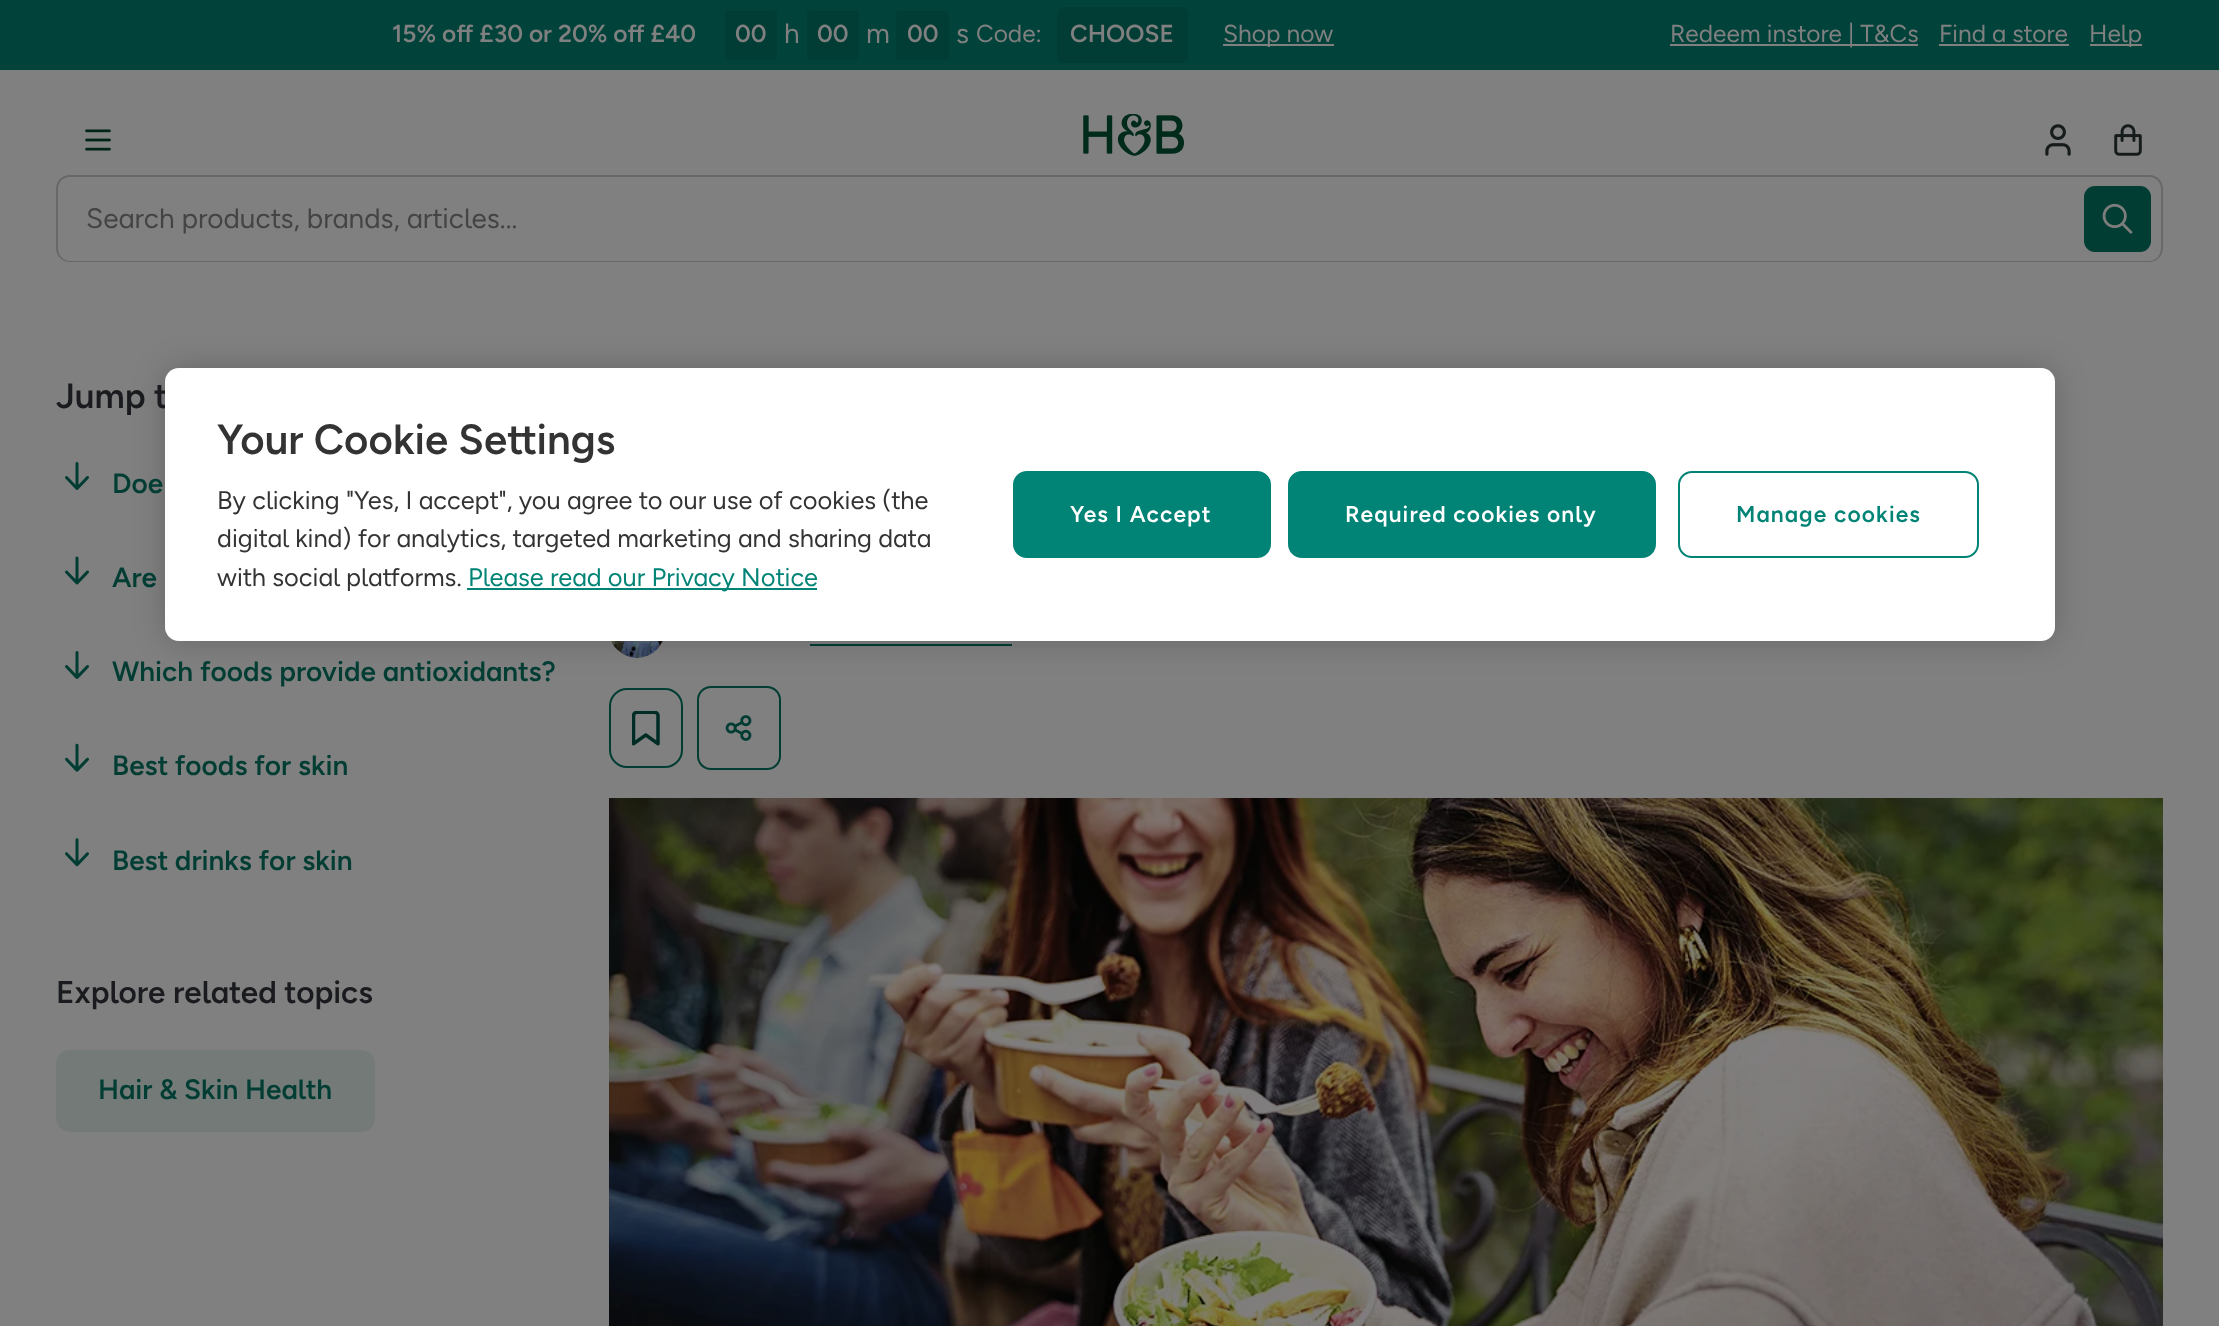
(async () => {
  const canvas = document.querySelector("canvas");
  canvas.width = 2219;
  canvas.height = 1326;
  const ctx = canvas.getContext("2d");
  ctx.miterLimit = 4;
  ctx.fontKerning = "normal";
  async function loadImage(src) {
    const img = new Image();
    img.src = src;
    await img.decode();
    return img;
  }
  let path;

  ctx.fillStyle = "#808080";
  ctx.fillRect(0, 0, 2219, 1326);
  ctx.fillStyle = "#01423b";
  ctx.fillRect(0, 0, 2219, 70);
  ctx.fillStyle = "#013c35";
  ctx.beginPath();
  ctx.roundRect(725, 11, 52, 49, 4);
  ctx.fill();
  ctx.beginPath();
  ctx.roundRect(807, 11, 52, 49, 4);
  ctx.fill();
  ctx.beginPath();
  ctx.roundRect(896, 11, 53, 49, 4);
  ctx.fill();
  ctx.beginPath();
  ctx.roundRect(1057, 7, 131, 56, 7);
  ctx.fill();
  for (const [x, y, w, h, color] of [
    [1223, 44, 111, 2, "#808080"],
    [1670, 44, 248, 2, "#808080"],
    [1939, 44, 130, 2, "#808080"],
    [2090, 44, 52, 2, "#808080"],
  ]) {
    ctx.fillStyle = color;
    ctx.fillRect(x, y, w, h);
  }
  ctx.drawImage(await loadImage("img/1.png"), 85, 129, 26, 22);
  ctx.drawImage(await loadImage("img/2.png"), 1083, 114, 101, 42);
  ctx.drawImage(await loadImage("img/3.png"), 2045, 124, 26, 32);
  ctx.drawImage(await loadImage("img/4.png"), 2114, 124, 28, 32);
  ctx.fillStyle = "#686869";
  path = new Path2D("M70 175H2084V262H70C62 262 56 256 56 248V189C56 181 62 175 70 175ZM70 177H2084V261H70C63 261 58 255 58 248V189C58 182 63 177 70 177Z");
  ctx.fill(path, "evenodd");
  path = new Path2D("M2084 175H2149C2157 175 2163 181 2163 189V248C2163 256 2157 262 2149 262H2084ZM2084 177H2149C2156 177 2161 182 2161 189V248C2161 255 2156 261 2149 261H2084Z");
  ctx.fill(path, "evenodd");
  ctx.fillStyle = "#013d33";
  ctx.beginPath();
  ctx.roundRect(2084, 186, 67, 66, 11);
  ctx.fill();
  ctx.drawImage(await loadImage("img/5.png"), 2102, 203, 31, 31);
  ctx.drawImage(await loadImage("img/6.png"), 65, 462, 24, 28);
  ctx.drawImage(await loadImage("img/7.png"), 65, 556, 24, 29);
  ctx.drawImage(await loadImage("img/6.png"), 65, 651, 24, 28);
  ctx.drawImage(await loadImage("img/8.png"), 65, 743, 24, 29);
  ctx.drawImage(await loadImage("img/9.png"), 65, 838, 24, 29);
  ctx.fillStyle = "#737a78";
  ctx.beginPath();
  ctx.roundRect(56, 1050, 319, 82, 14);
  ctx.fill();
  ctx.drawImage(await loadImage("img/10.png"), 611, 641, 52, 17);
  ctx.fillStyle = "#013d33";
  ctx.fillRect(810, 644, 202, 2);
  ctx.beginPath();
  ctx.roundRect(610, 689, 72, 78, 17);
  ctx.strokeStyle = "#013d33";
  ctx.lineWidth = 2;
  ctx.stroke();
  ctx.drawImage(await loadImage("img/11.png"), 632, 711, 28, 35);
  ctx.beginPath();
  ctx.roundRect(698, 687, 82, 82, 13);
  ctx.stroke();
  ctx.drawImage(await loadImage("img/12.png"), 725, 715, 27, 26);
  ctx.drawImage(await loadImage("img/13.png"), 609, 798, 1554, 528);
  ctx.fillStyle = "rgba(0, 0, 0, 0.2)";
  ctx.filter = "blur(16px)";
  ctx.beginPath();
  ctx.roundRect(165, 368, 1890, 273, 14);
  ctx.fill();
  ctx.filter = "none";
  ctx.font = "600 24.5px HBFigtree";
  ctx.fillStyle = "#808080";
  ctx.fillText("15% off £30 or 20% off £40", 392, 42);
  ctx.fillText("00", 735, 42);
  ctx.font = "28px HBFigtree";
  ctx.fillText("h", 784, 43);
  ctx.font = "600 24.5px HBFigtree";
  ctx.fillText("00", 817, 42);
  ctx.font = "28px HBFigtree";
  ctx.fillText("m", 866, 43);
  ctx.font = "600 24.5px HBFigtree";
  ctx.fillText("00", 907, 42);
  ctx.font = "28px HBFigtree";
  ctx.fillText("s", 956, 43);
  ctx.font = "24.5px HBFigtree";
  ctx.fillText("Code:", 976, 42);
  ctx.font = "600 24.5px HBFigtree";
  ctx.fillText("CHOOSE", 1070, 42);
  ctx.font = "24.5px HBFigtree";
  for (const [text, x, y] of [
    ["Shop now", 1223, 42],
    ["Redeem instore | T&Cs", 1670, 42],
    ["Find a store", 1939, 42],
    ["Help", 2089, 42],
  ]) {
    ctx.fillText(text, x, y);
  }
  ctx.font = "28px HBFigtree";
  ctx.fillStyle = "#444446";
  ctx.fillText("Search products, brands, articles...", 86, 228);
  ctx.font = "600 35px HBFigtree";
  ctx.fillStyle = "#1a1b1e";
  ctx.fillText("Jump t", 56, 408);
  ctx.font = "600 28px HBFigtree";
  ctx.fillStyle = "#013d33";
  for (const [text, x, y] of [
    ["Doe", 112, 493],
    ["Are", 112, 587],
    ["Which foods provide antioxidants?", 112, 681],
    ["Best foods for skin", 112, 775],
    ["Best drinks for skin", 112, 870],
  ]) {
    ctx.fillText(text, x, y);
  }
  ctx.font = "600 31.5px HBFigtree";
  ctx.fillStyle = "#1a1b1e";
  ctx.fillText("Explore related topics", 56, 1003);
  ctx.font = "600 28px HBFigtree";
  ctx.fillStyle = "#013d33";
  ctx.fillText("Hair & Skin Health", 98, 1099);
  ctx.fillStyle = "#ffffff";
  ctx.beginPath();
  ctx.roundRect(165, 368, 1890, 273, 14);
  ctx.fill();
  ctx.font = "600 42px HBFigtree";
  ctx.fillStyle = "#333333";
  ctx.fillText("Your Cookie Settings", 217, 454);
  ctx.font = "25.4px HBFigtree";
  for (const [text, x, y] of [
    ["By clicking \"Yes, I accept\", you agree to our use of cookies (the", 217, 509],
    ["digital kind) for analytics, targeted marketing and sharing data", 217, 547],
    ["with social platforms.", 217, 586],
  ]) {
    ctx.fillText(text, x, y);
  }
  ctx.fillStyle = "#018476";
  ctx.fillRect(467, 588, 350, 2);
  ctx.fillText("Please read our Privacy Notice", 468, 586);
  ctx.beginPath();
  ctx.roundRect(1014, 472, 256, 85, 13);
  ctx.fill();
  ctx.strokeStyle = "#018476";
  ctx.stroke();
  ctx.letterSpacing = "1.1px";
  ctx.font = "600 22.75px HBFigtree";
  ctx.fillStyle = "#ffffff";
  ctx.fillText("Yes I Accept", 1070, 522);
  ctx.fillStyle = "#018476";
  ctx.beginPath();
  ctx.roundRect(1289, 472, 366, 85, 13);
  ctx.fill();
  ctx.stroke();
  ctx.fillStyle = "#ffffff";
  ctx.fillText("Required cookies only", 1345, 522);
  ctx.beginPath();
  ctx.roundRect(1679, 472, 299, 85, 13);
  ctx.stroke();
  ctx.fillStyle = "#018476";
  ctx.fillText("Manage cookies", 1736, 522);
})();
